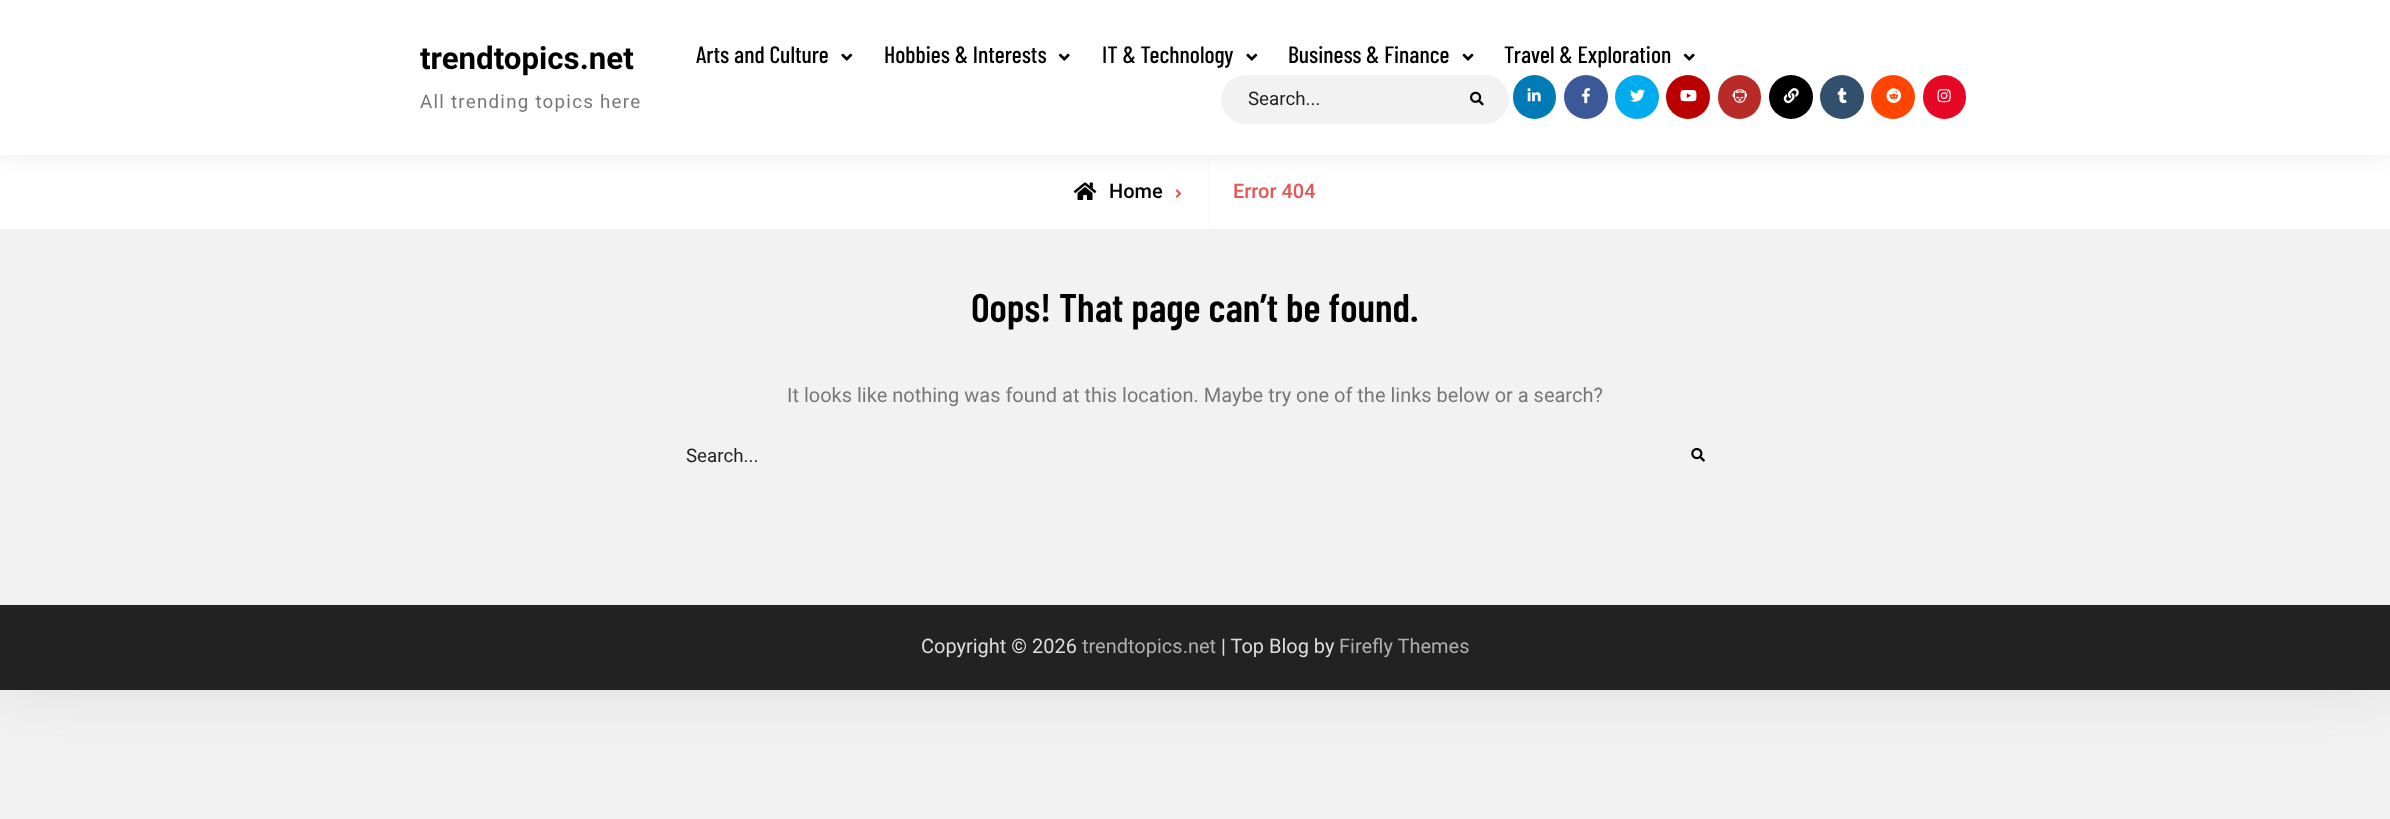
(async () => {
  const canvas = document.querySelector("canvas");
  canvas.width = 2390;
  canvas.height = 819;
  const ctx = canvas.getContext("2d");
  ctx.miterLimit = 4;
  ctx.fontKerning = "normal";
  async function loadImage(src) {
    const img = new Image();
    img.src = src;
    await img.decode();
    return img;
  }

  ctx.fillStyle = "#f2f2f2";
  ctx.fillRect(0, 0, 2390, 819);
  ctx.save();
  ctx.beginPath();
  ctx.rect(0, 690, 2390, 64);
  ctx.clip();
  ctx.fillStyle = "#dddddd";
  ctx.filter = "blur(31px)";
  ctx.beginPath();
  ctx.rect(0, 0, 2390, 690);
  ctx.fill();
  ctx.filter = "none";
  ctx.restore();
  ctx.fillStyle = "#ffffff";
  ctx.fillRect(0, 155, 2390, 74);
  ctx.fillStyle = "#f8f8f8";
  ctx.fillRect(1208, 155, 1, 74);
  ctx.drawImage(await loadImage("img/14.png"), 1073, 182, 24, 18);
  ctx.fillStyle = "rgba(0, 0, 0, 0.09)";
  ctx.filter = "blur(10px)";
  ctx.beginPath();
  ctx.rect(0, 0, 2390, 155);
  ctx.fill();
  ctx.filter = "none";
  ctx.fillStyle = "#ffffff";
  ctx.fillRect(0, 0, 2390, 155);
  ctx.drawImage(await loadImage("img/1.png"), 841, 53, 12, 8);
  ctx.drawImage(await loadImage("img/2.png"), 1058, 53, 12, 8);
  ctx.drawImage(await loadImage("img/1.png"), 1246, 53, 12, 8);
  ctx.drawImage(await loadImage("img/3.png"), 1462, 53, 12, 8);
  ctx.drawImage(await loadImage("img/2.png"), 1683, 53, 12, 8);
  ctx.fillStyle = "#f2f2f2";
  ctx.beginPath();
  ctx.roundRect(1221.5, 75.5, 287, 48, 24);
  ctx.fill();
  ctx.strokeStyle = "#f2f2f2";
  ctx.stroke();
  ctx.drawImage(await loadImage("img/4.png"), 1470, 91, 14, 15);
  ctx.fillStyle = "#007bb6";
  ctx.beginPath();
  ctx.roundRect(1513, 75, 43, 44, 21.5);
  ctx.fill();
  ctx.drawImage(await loadImage("img/5.png"), 1527, 88, 14, 14);
  ctx.fillStyle = "#3b5998";
  ctx.beginPath();
  ctx.arc(1586, 97, 22, 0, Math.PI * 2);
  ctx.fill();
  ctx.drawImage(await loadImage("img/6.png"), 1581, 88, 9, 16);
  ctx.fillStyle = "#00aced";
  ctx.beginPath();
  ctx.arc(1637, 97, 22, 0, Math.PI * 2);
  ctx.fill();
  ctx.drawImage(await loadImage("img/7.png"), 1630, 89, 15, 13);
  ctx.fillStyle = "#bb0000";
  ctx.beginPath();
  ctx.arc(1688, 97, 22, 0, Math.PI * 2);
  ctx.fill();
  ctx.drawImage(await loadImage("img/8.png"), 1680, 90, 17, 12);
  ctx.fillStyle = "#b92b27";
  ctx.beginPath();
  ctx.roundRect(1718, 75, 43, 44, 21.5);
  ctx.fill();
  ctx.drawImage(await loadImage("img/9.png"), 1732, 89, 16, 14);
  ctx.fillStyle = "#000000";
  ctx.beginPath();
  ctx.arc(1791, 97, 22, 0, Math.PI * 2);
  ctx.fill();
  ctx.drawImage(await loadImage("img/10.png"), 1783, 88, 16, 16);
  ctx.fillStyle = "#32506d";
  ctx.beginPath();
  ctx.arc(1842, 97, 22, 0, Math.PI * 2);
  ctx.fill();
  ctx.drawImage(await loadImage("img/11.png"), 1837, 88, 10, 16);
  ctx.fillStyle = "#ff4500";
  ctx.beginPath();
  ctx.arc(1893, 97, 22, 0, Math.PI * 2);
  ctx.fill();
  ctx.drawImage(await loadImage("img/12.png"), 1886, 88, 15, 15);
  ctx.fillStyle = "#e70826";
  ctx.beginPath();
  ctx.roundRect(1923, 75, 43, 44, 21.5);
  ctx.fill();
  ctx.drawImage(await loadImage("img/13.png"), 1937, 89, 14, 14);
  ctx.drawImage(await loadImage("img/15.png"), 1175, 189, 7, 9);
  ctx.drawImage(await loadImage("img/16.png"), 1691, 448, 14, 14);
  ctx.fillStyle = "#222222";
  ctx.fillRect(0, 605, 2390, 85);
  ctx.font = "bold 31.25px Roboto";
  ctx.fillStyle = "#000000";
  ctx.fillText("trendtopics.net", 420, 69);
  ctx.letterSpacing = "1.25px";
  ctx.font = "18.75px Roboto";
  ctx.fillStyle = "#777777";
  ctx.fillText("All trending topics here", 420, 108);
  ctx.letterSpacing = "0px";
  ctx.font = "500 23.75px Barlow Condensed";
  ctx.fillStyle = "#000000";
  for (const [text, x, y] of [
    ["Arts and Culture", 696, 63],
    ["Hobbies & Interests", 884, 63],
    ["IT & Technology", 1102, 63],
    ["Business & Finance", 1288, 63],
    ["Travel & Exploration", 1504, 63],
  ]) {
    ctx.fillText(text, x, y);
  }
  ctx.font = "18.75px Roboto";
  ctx.fillStyle = "#222222";
  ctx.fillText("Search...", 1248, 105);
  ctx.font = "500 20px Roboto";
  ctx.fillStyle = "#000000";
  ctx.fillText("Home", 1109, 198);
  ctx.fillStyle = "#e25757";
  ctx.fillText("Error 404", 1233, 198);
  ctx.font = "600 40px Barlow Condensed";
  ctx.fillStyle = "#000000";
  ctx.fillText("Oops! That page can’t be found.", 971, 322);
  ctx.font = "20px Roboto";
  ctx.fillStyle = "#777777";
  ctx.fillText("It looks like nothing was found at this location. Maybe try one of the links below or a search?", 787, 402);
  ctx.font = "18.75px Roboto";
  ctx.fillStyle = "#222222";
  ctx.fillText("Search...", 686, 462);
  ctx.font = "20px Roboto";
  ctx.fillStyle = "#dddddd";
  ctx.fillText("Copyright © 2026", 921, 653);
  ctx.fillStyle = "#afafaf";
  ctx.fillText("trendtopics.net", 1082, 653);
  ctx.fillStyle = "#dddddd";
  ctx.fillText("| Top Blog by", 1221, 653);
  ctx.fillStyle = "#afafaf";
  ctx.fillText("Firefly Themes", 1339, 653);
})();
